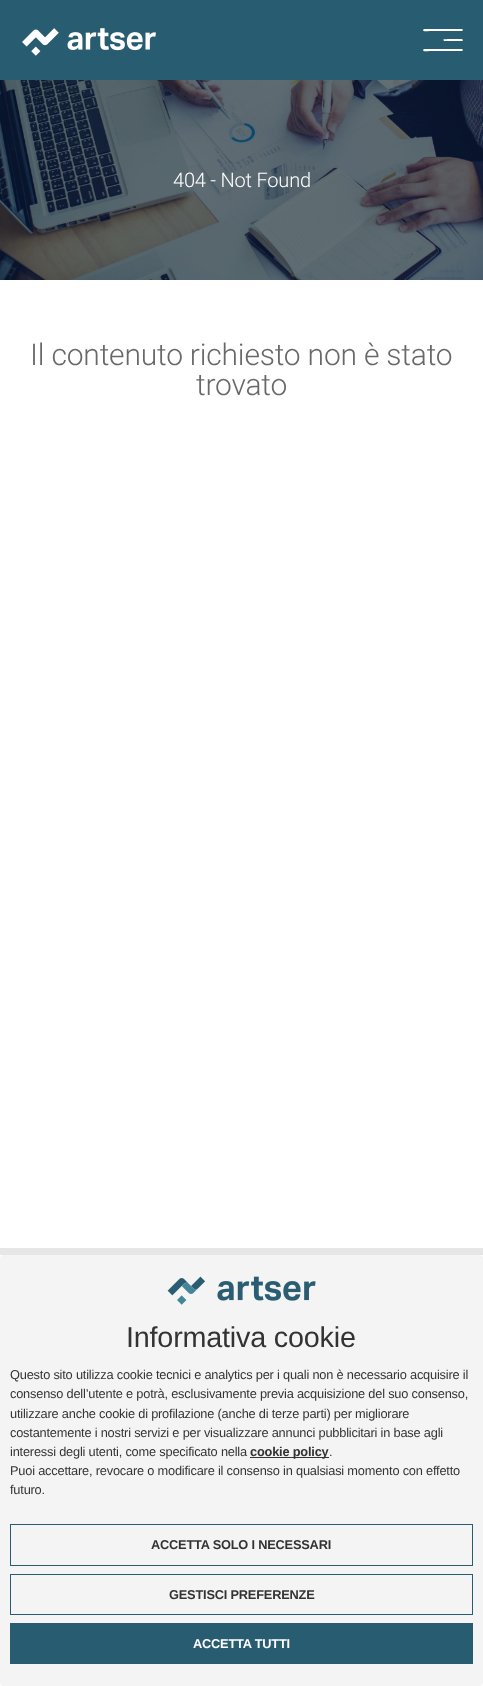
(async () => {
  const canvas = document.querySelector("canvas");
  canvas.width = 483;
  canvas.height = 1686;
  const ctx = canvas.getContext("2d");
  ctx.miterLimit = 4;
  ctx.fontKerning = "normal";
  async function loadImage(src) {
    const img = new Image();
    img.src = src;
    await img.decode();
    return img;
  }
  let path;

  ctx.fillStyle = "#ffffff";
  ctx.fillRect(0, 0, 483, 1686);
  ctx.fillStyle = "#285c71";
  ctx.fillRect(0, 0, 483, 80);
  ctx.drawImage(await loadImage("img/1.png"), 22, 28, 134, 28);
  ctx.fillStyle = "#ffffff";
  path = new Path2D("M462 39C460 39 444 38.5 443.5 39.5C441.5 41 445 41 447 41H462.5C463 40.5 463 40 462.5 39.5ZM462 29H424L423 30C423 32 427 31 430 31H462C463 31 463 29 462 29ZM462 49H424L423 50C423 52 427 51 430 51H462C463 51 463 49 462 49Z");
  ctx.fill(path);
  ctx.drawImage(await loadImage("img/2.png"), 0, 80, 483, 200);
  ctx.fillStyle = "#e6e6e6";
  ctx.fillRect(0, 1248, 483, 7);
  ctx.fillStyle = "#f4f4f4";
  ctx.beginPath();
  ctx.roundRect(0, 1255, 483, 431, 4);
  ctx.fill();
  ctx.drawImage(await loadImage("img/3.png"), 167, 1276, 149, 29);
  ctx.fillStyle = "#333333";
  ctx.fillRect(250, 1457, 79, 1);
  ctx.strokeStyle = "#285c71";
  ctx.strokeRect(10.5, 1524.5, 462, 41);
  ctx.strokeRect(10.5, 1574.5, 462, 40);
  ctx.fillStyle = "#285c71";
  ctx.fillRect(10, 1623, 463, 41);
  ctx.letterSpacing = "-0.2px";
  ctx.font = "300 20px Roboto";
  ctx.fillStyle = "#ffffff";
  ctx.fillText("404 - Not Found", 173, 187);
  ctx.font = "300 30px Roboto";
  ctx.fillStyle = "#686868";
  ctx.fillText("Il contenuto richiesto non è stato", 30, 365);
  ctx.fillText("trovato", 196, 395);
  ctx.font = "28.75px Liberation Sans";
  ctx.fillStyle = "#333333";
  ctx.fillText("Informativa cookie", 126, 1347);
  ctx.font = "12.8px Liberation Sans";
  for (const [text, x, y] of [
    ["Questo sito utilizza cookie tecnici e analytics per i quali non è necessario acquisire il", 10, 1379],
    ["consenso dell’utente e potrà, esclusivamente previa acquisizione del suo consenso,", 10, 1398],
    ["utilizzare anche cookie di profilazione (anche di terze parti) per migliorare", 10, 1418],
    ["costantemente i nostri servizi e per visualizzare annunci pubblicitari in base agli", 10, 1437],
    ["interessi degli utenti, come specificato nella", 10, 1456],
  ]) {
    ctx.fillText(text, x, y);
  }
  ctx.font = "bold 12.8px Liberation Sans";
  ctx.fillText("cookie policy", 250, 1456);
  ctx.font = "12.8px Liberation Sans";
  for (const [text, x, y] of [
    [".", 329, 1456],
    ["Puoi accettare, revocare o modificare il consenso in qualsiasi momento con effetto", 10, 1475],
    ["futuro.", 10, 1494],
  ]) {
    ctx.fillText(text, x, y);
  }
  ctx.font = "bold 12.8px Liberation Sans";
  ctx.fillText("ACCETTA SOLO I NECESSARI", 151, 1549);
  ctx.fillText("GESTISCI PREFERENZE", 169, 1599);
  ctx.fillStyle = "#ffffff";
  ctx.fillText("ACCETTA TUTTI", 193, 1648);
})();
